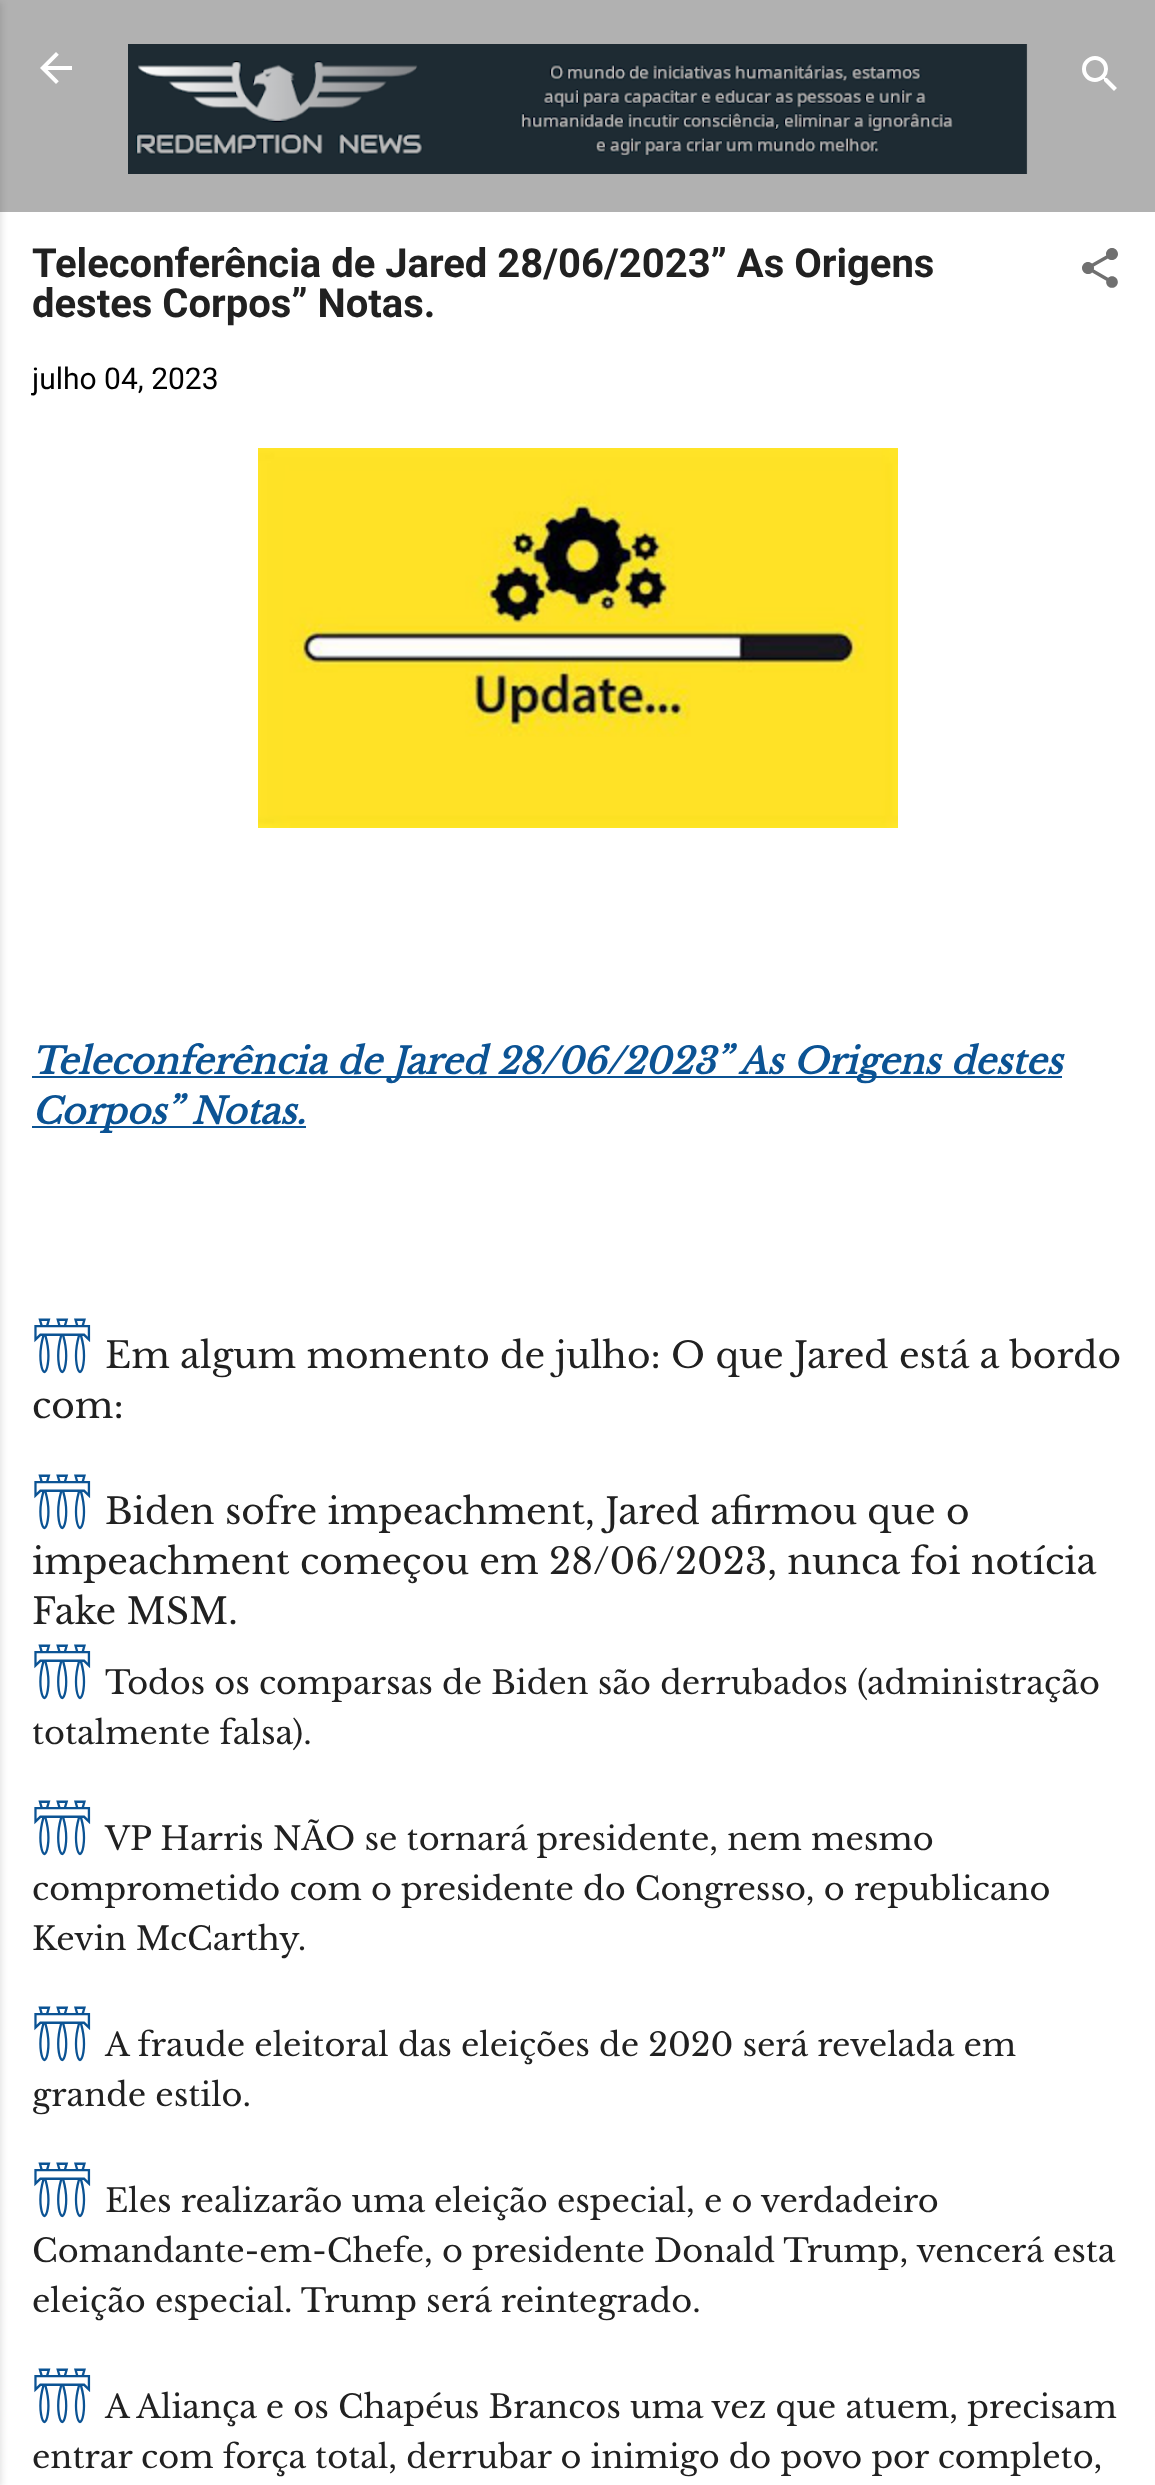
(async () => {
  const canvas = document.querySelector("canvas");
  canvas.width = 1155;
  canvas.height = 2485;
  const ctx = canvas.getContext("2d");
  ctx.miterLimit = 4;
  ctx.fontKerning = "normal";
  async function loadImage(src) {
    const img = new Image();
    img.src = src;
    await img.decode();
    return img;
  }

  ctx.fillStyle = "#b1b1b1";
  ctx.fillRect(0, 0, 1155, 2485);
  ctx.fillStyle = "#ffffff";
  ctx.fillRect(0, 212, 1155, 2273);
  ctx.fillStyle = "rgba(0, 0, 0, 0.1)";
  ctx.filter = "blur(3px)";
  ctx.beginPath();
  ctx.rect(-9, 2, 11, 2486);
  ctx.fill();
  ctx.filter = "none";
  ctx.drawImage(await loadImage("img/1.png"), 40, 52, 32, 32);
  ctx.drawImage(await loadImage("img/2.png"), 128, 44, 900, 130);
  ctx.drawImage(await loadImage("img/3.png"), 1082, 56, 35, 35);
  ctx.drawImage(await loadImage("img/4.png"), 1082, 248, 36, 40);
  ctx.drawImage(await loadImage("img/5.png"), 258, 448, 640, 380);
  ctx.fillStyle = "#0b5394";
  ctx.fillRect(32, 1076, 1030, 2);
  ctx.fillRect(32, 1126, 274, 2);
  ctx.font = "bold 40px Roboto";
  ctx.fillStyle = "#212121";
  ctx.fillText("Teleconferência de Jared 28/06/2023” As Origens", 32, 277);
  ctx.fillText("destes Corpos” Notas.", 32, 317);
  ctx.font = "30px Roboto";
  ctx.fillStyle = "#000000";
  ctx.fillText("julho 04, 2023", 32, 389);
  ctx.font = "italic bold 36px Libre Baskerville";
  ctx.fillStyle = "#0b5394";
  ctx.fillText("Teleconferência de Jared 28/06/2023” As Origens destes", 32, 1074);
  ctx.fillText("Corpos” Notas.", 32, 1124);
  ctx.font = "bold 48px Noto Sans Egyptian Hieroglyphs";
  ctx.fillText("𓋣", 32, 1368);
  ctx.font = "36px Libre Baskerville";
  ctx.fillStyle = "#212121";
  ctx.fillText("Em algum momento de julho: O que Jared está a bordo", 105, 1368);
  ctx.fillText("com:", 32, 1418);
  ctx.font = "bold 48px Noto Sans Egyptian Hieroglyphs";
  ctx.fillStyle = "#0b5394";
  ctx.fillText("𓋣", 32, 1524);
  ctx.font = "36px Libre Baskerville";
  ctx.fillStyle = "#212121";
  for (const [text, x, y] of [
    ["Biden sofre impeachment, Jared afirmou que o", 105, 1524],
    ["impeachment começou em 28/06/2023, nunca foi notícia", 32, 1574],
    ["Fake MSM.", 32, 1624],
  ]) {
    ctx.fillText(text, x, y);
  }
  ctx.font = "bold 48px Noto Sans Egyptian Hieroglyphs";
  ctx.fillStyle = "#0b5394";
  ctx.fillText("𓋣", 32, 1694);
  ctx.font = "32px Libre Baskerville";
  ctx.fillStyle = "#212121";
  ctx.fillText("Todos os comparsas de Biden são derrubados (administração", 105, 1694);
  ctx.fillText("totalmente falsa).", 32, 1744);
  ctx.font = "bold 48px Noto Sans Egyptian Hieroglyphs";
  ctx.fillStyle = "#0b5394";
  ctx.fillText("𓋣", 32, 1850);
  ctx.font = "32px Libre Baskerville";
  ctx.fillStyle = "#212121";
  for (const [text, x, y] of [
    ["VP Harris NÃO se tornará presidente, nem mesmo", 105, 1850],
    ["comprometido com o presidente do Congresso, o republicano", 32, 1900],
    ["Kevin McCarthy.", 32, 1950],
  ]) {
    ctx.fillText(text, x, y);
  }
  ctx.font = "bold 48px Noto Sans Egyptian Hieroglyphs";
  ctx.fillStyle = "#0b5394";
  ctx.fillText("𓋣", 32, 2056);
  ctx.font = "32px Libre Baskerville";
  ctx.fillStyle = "#212121";
  ctx.fillText("A fraude eleitoral das eleições de 2020 será revelada em", 105, 2056);
  ctx.fillText("grande estilo.", 32, 2106);
  ctx.font = "bold 48px Noto Sans Egyptian Hieroglyphs";
  ctx.fillStyle = "#0b5394";
  ctx.fillText("𓋣", 32, 2212);
  ctx.font = "32px Libre Baskerville";
  ctx.fillStyle = "#212121";
  for (const [text, x, y] of [
    ["Eles realizarão uma eleição especial, e o verdadeiro", 105, 2212],
    ["Comandante-em-Chefe, o presidente Donald Trump, vencerá esta", 32, 2262],
    ["eleição especial. Trump será reintegrado.", 32, 2312],
  ]) {
    ctx.fillText(text, x, y);
  }
  ctx.font = "bold 48px Noto Sans Egyptian Hieroglyphs";
  ctx.fillStyle = "#0b5394";
  ctx.fillText("𓋣", 32, 2418);
  ctx.font = "32px Libre Baskerville";
  ctx.fillStyle = "#212121";
  ctx.fillText("A Aliança e os Chapéus Brancos uma vez que atuem, precisam", 105, 2418);
  ctx.fillText("entrar com força total, derrubar o inimigo do povo por completo,", 32, 2468);
})();
